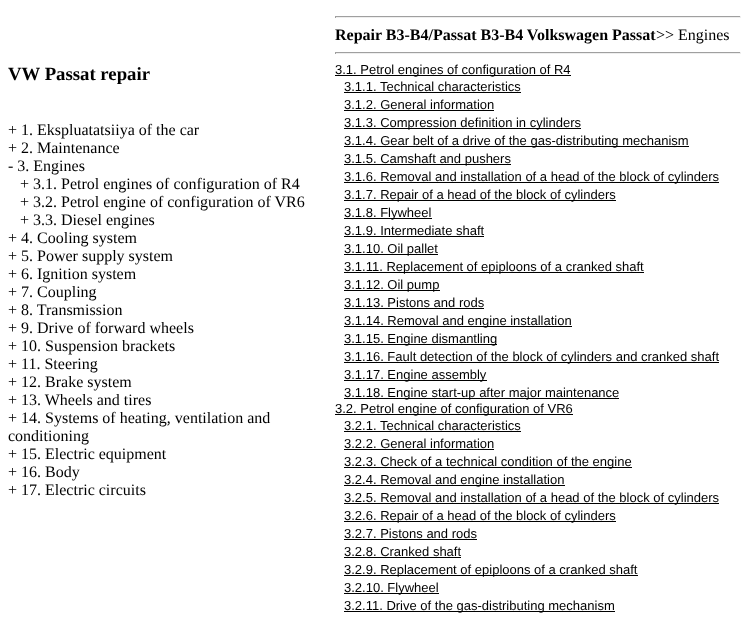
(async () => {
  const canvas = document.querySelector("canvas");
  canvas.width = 749;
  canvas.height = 625;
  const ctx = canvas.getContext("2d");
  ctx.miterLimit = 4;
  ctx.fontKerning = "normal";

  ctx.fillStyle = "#ffffff";
  ctx.fillRect(0, 0, 749, 625);
  for (const [x, y, w, h, color] of [
    [335, 16, 406, 1, "#9f9f9f"],
    [740, 16, 1, 2, "#eeeeee"],
    [335, 17, 406, 1, "#eeeeee"],
    [335, 16, 1, 2, "#9f9f9f"],
    [335, 52, 406, 1, "#9f9f9f"],
    [740, 52, 1, 2, "#eeeeee"],
    [335, 53, 406, 1, "#eeeeee"],
    [335, 52, 1, 2, "#9f9f9f"],
    [335, 75, 236, 1, "#000000"],
    [344, 92, 177, 1, "#000000"],
    [344, 110, 150, 1, "#000000"],
    [344, 128, 237, 1, "#000000"],
    [344, 146, 345, 1, "#000000"],
    [344, 164, 167, 1, "#000000"],
    [344, 182, 375, 1, "#000000"],
    [344, 200, 272, 1, "#000000"],
    [344, 218, 88, 1, "#000000"],
    [344, 236, 140, 1, "#000000"],
    [344, 254, 94, 1, "#000000"],
    [344, 272, 300, 1, "#000000"],
    [344, 290, 96, 1, "#000000"],
    [344, 308, 140, 1, "#000000"],
    [344, 326, 228, 1, "#000000"],
    [344, 344, 153, 1, "#000000"],
    [344, 362, 375, 1, "#000000"],
    [344, 380, 143, 1, "#000000"],
    [344, 398, 275, 1, "#000000"],
    [335, 414, 238, 1, "#000000"],
    [344, 431, 177, 1, "#000000"],
    [344, 449, 150, 1, "#000000"],
    [344, 467, 288, 1, "#000000"],
    [344, 485, 221, 1, "#000000"],
    [344, 503, 375, 1, "#000000"],
    [344, 521, 272, 1, "#000000"],
    [344, 539, 133, 1, "#000000"],
    [344, 557, 117, 1, "#000000"],
    [344, 575, 294, 1, "#000000"],
    [344, 593, 95, 1, "#000000"],
    [344, 611, 271, 1, "#000000"],
  ]) {
    ctx.fillStyle = color;
    ctx.fillRect(x, y, w, h);
  }
  ctx.font = "bold 18.75px Liberation Serif";
  ctx.fillText("VW Passat repair", 8, 80);
  ctx.font = "16px Liberation Serif";
  for (const [text, x, y] of [
    ["+ 1. Ekspluatatsiiya of the car", 8, 135],
    ["+ 2. Maintenance", 8, 153],
    ["- 3. Engines", 8, 171],
    ["+ 3.1. Petrol engines of configuration of R4", 20, 189],
    ["+ 3.2. Petrol engine of configuration of VR6", 20, 207],
    ["+ 3.3. Diesel engines", 20, 225],
    ["+ 4. Cooling system", 8, 243],
    ["+ 5. Power supply system", 8, 261],
    ["+ 6. Ignition system", 8, 279],
    ["+ 7. Coupling", 8, 297],
    ["+ 8. Transmission", 8, 315],
    ["+ 9. Drive of forward wheels", 8, 333],
    ["+ 10. Suspension brackets", 8, 351],
    ["+ 11. Steering", 8, 369],
    ["+ 12. Brake system", 8, 387],
    ["+ 13. Wheels and tires", 8, 405],
    ["+ 14. Systems of heating, ventilation and", 8, 423],
    ["conditioning", 8, 441],
    ["+ 15. Electric equipment", 8, 459],
    ["+ 16. Body", 8, 477],
    ["+ 17. Electric circuits", 8, 495],
  ]) {
    ctx.fillText(text, x, y);
  }
  ctx.font = "bold 16px Liberation Serif";
  ctx.fillText("Repair B3-B4/Passat B3-B4 Volkswagen Passat", 335, 40);
  ctx.font = "16px Liberation Serif";
  ctx.fillText(">> Engines", 656, 40);
  ctx.font = "13px Liberation Sans";
  for (const [text, x, y] of [
    ["3.1. Petrol engines of configuration of R4", 335, 74],
    ["3.1.1. Technical characteristics", 344, 91],
    ["3.1.2. General information", 344, 109],
    ["3.1.3. Compression definition in cylinders", 344, 127],
    ["3.1.4. Gear belt of a drive of the gas-distributing mechanism", 344, 145],
    ["3.1.5. Camshaft and pushers", 344, 163],
    ["3.1.6. Removal and installation of a head of the block of cylinders", 344, 181],
    ["3.1.7. Repair of a head of the block of cylinders", 344, 199],
    ["3.1.8. Flywheel", 344, 217],
    ["3.1.9. Intermediate shaft", 344, 235],
    ["3.1.10. Oil pallet", 344, 253],
    ["3.1.11. Replacement of epiploons of a cranked shaft", 344, 271],
    ["3.1.12. Oil pump", 344, 289],
    ["3.1.13. Pistons and rods", 344, 307],
    ["3.1.14. Removal and engine installation", 344, 325],
    ["3.1.15. Engine dismantling", 344, 343],
    ["3.1.16. Fault detection of the block of cylinders and cranked shaft", 344, 361],
    ["3.1.17. Engine assembly", 344, 379],
    ["3.1.18. Engine start-up after major maintenance", 344, 397],
    ["3.2. Petrol engine of configuration of VR6", 335, 413],
    ["3.2.1. Technical characteristics", 344, 430],
    ["3.2.2. General information", 344, 448],
    ["3.2.3. Check of a technical condition of the engine", 344, 466],
    ["3.2.4. Removal and engine installation", 344, 484],
    ["3.2.5. Removal and installation of a head of the block of cylinders", 344, 502],
    ["3.2.6. Repair of a head of the block of cylinders", 344, 520],
    ["3.2.7. Pistons and rods", 344, 538],
    ["3.2.8. Cranked shaft", 344, 556],
    ["3.2.9. Replacement of epiploons of a cranked shaft", 344, 574],
    ["3.2.10. Flywheel", 344, 592],
    ["3.2.11. Drive of the gas-distributing mechanism", 344, 610],
  ]) {
    ctx.fillText(text, x, y);
  }
})();
